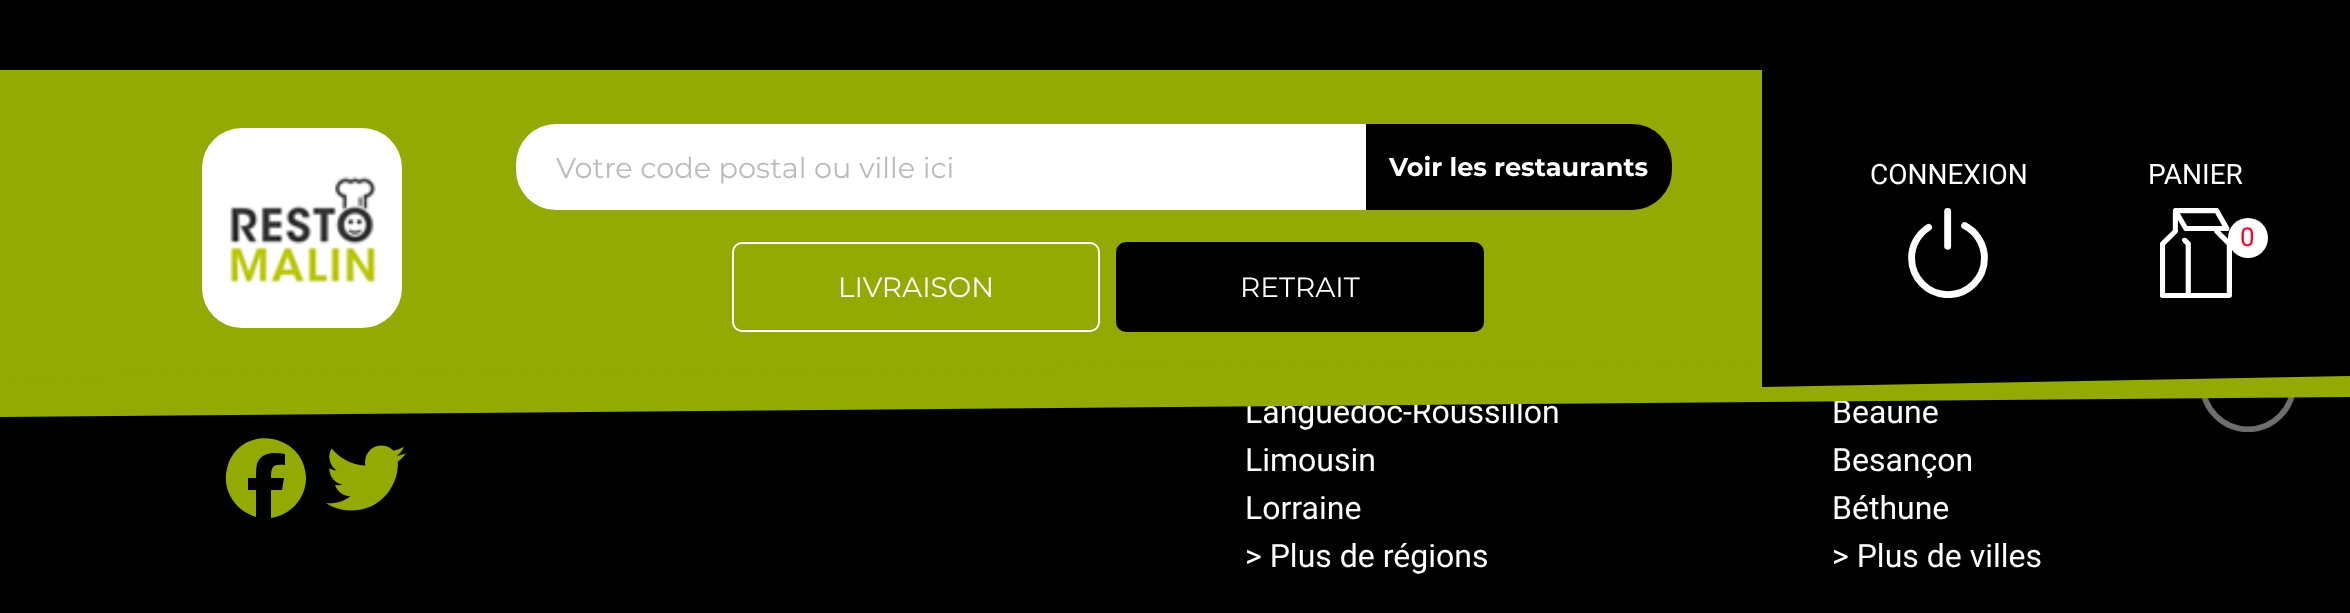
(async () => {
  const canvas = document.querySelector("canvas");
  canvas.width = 2350;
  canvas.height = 613;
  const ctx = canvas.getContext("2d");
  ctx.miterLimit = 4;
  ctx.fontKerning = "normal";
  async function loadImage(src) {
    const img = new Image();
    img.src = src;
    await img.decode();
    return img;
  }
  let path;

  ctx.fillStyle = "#000000";
  ctx.fillRect(0, 0, 2350, 613);
  ctx.fillStyle = "#92aa03";
  ctx.fillRect(0, 70, 1762, 307);
  ctx.drawImage(await loadImage("img/1.png"), 202, 128, 200, 200);
  ctx.fillStyle = "#ffffff";
  ctx.beginPath();
  ctx.roundRect(516, 124, 850, 86, [40, 0, 0, 40]);
  ctx.fill();
  ctx.fillStyle = "#000000";
  ctx.beginPath();
  ctx.roundRect(1368, 126, 302, 82, [0, 38, 38, 0]);
  ctx.fill();
  ctx.strokeStyle = "#000000";
  ctx.lineWidth = 4;
  ctx.stroke();
  ctx.beginPath();
  ctx.roundRect(733, 243, 366, 88, 9);
  ctx.strokeStyle = "#ffffff";
  ctx.lineWidth = 2;
  ctx.stroke();
  ctx.beginPath();
  ctx.roundRect(1117, 243, 366, 88, 9);
  ctx.fill();
  ctx.strokeStyle = "#000000";
  ctx.stroke();
  ctx.fillStyle = "#92aa03";
  path = new Path2D("M306 478C305 435 246 423 229 462C225 472 225 482 228 491C233 504 243 513 256 517V490H248V478H256C256 473 256 468 257 464C261 452 274 452 285 454V465C273 464 271 466 271 478H284L282 490H271V518C291 515 306 498 306 478Z");
  ctx.fill(path);
  ctx.drawImage(await loadImage("img/4.png"), 326, 445, 80, 66);
  ctx.drawImage(await loadImage("img/5.png"), 2201, 397, 94, 36);
  ctx.font = "28.75px Montserrat";
  ctx.fillStyle = "#bbbbbb";
  ctx.fillText("Votre code postal ou ville ici", 556, 178);
  ctx.font = "bold 25.6px Montserrat";
  ctx.fillStyle = "#ffffff";
  ctx.fillText("Voir les restaurants", 1389, 176);
  ctx.font = "28px Montserrat";
  ctx.fillText("LIVRAISON", 838, 297);
  ctx.fillText("RETRAIT", 1240, 297);
  ctx.font = "32px Roboto";
  for (const [text, x, y] of [
    ["Languedoc-Roussillon", 1245, 423],
    ["Limousin", 1245, 471],
    ["Lorraine", 1245, 519],
    ["> Plus de régions", 1245, 567],
    ["Beaune", 1832, 423],
  ]) {
    ctx.fillText(text, x, y);
  }
  ctx.fillStyle = "#92aa03";
  path = new Path2D("M0 377L2350 357V397L0 417Z");
  ctx.fill(path);
  ctx.fillStyle = "#000000";
  path = new Path2D("M1762 35L2350 24V376L1762 387Z");
  ctx.fill(path);
  ctx.drawImage(await loadImage("img/3.png"), 2160, 208, 72, 90);
  ctx.fillStyle = "#ffffff";
  ctx.beginPath();
  ctx.arc(2248, 238, 20, 0, Math.PI * 2);
  ctx.fill();
  ctx.font = "26px Roboto";
  ctx.fillStyle = "#ff002a";
  ctx.fillText("0", 2240, 246);
  ctx.font = "28px Roboto";
  ctx.fillStyle = "#ffffff";
  ctx.fillText("PANIER", 2148, 184);
  ctx.fillText("CONNEXION", 1870, 184);
  ctx.drawImage(await loadImage("img/2.png"), 1908, 208, 80, 90);
  ctx.font = "32px Roboto";
  for (const [text, x, y] of [
    ["Besançon", 1832, 471],
    ["Béthune", 1832, 519],
    ["> Plus de villes", 1832, 567],
  ]) {
    ctx.fillText(text, x, y);
  }
})();
